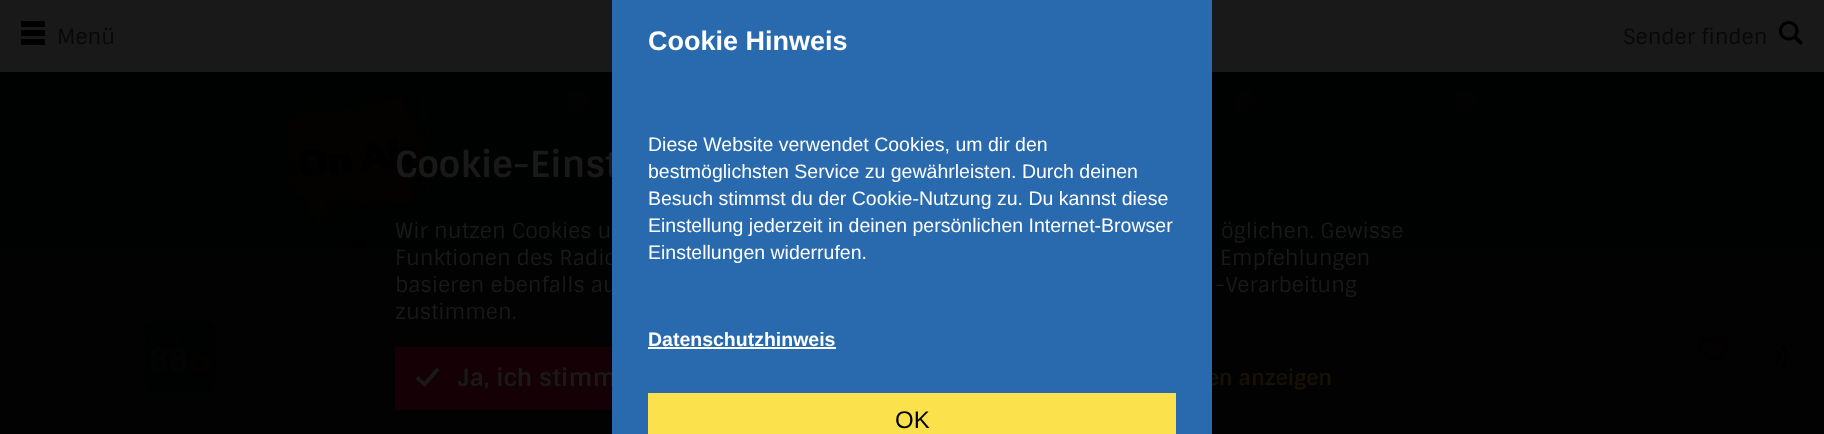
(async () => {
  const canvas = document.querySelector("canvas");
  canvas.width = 1824;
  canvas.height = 434;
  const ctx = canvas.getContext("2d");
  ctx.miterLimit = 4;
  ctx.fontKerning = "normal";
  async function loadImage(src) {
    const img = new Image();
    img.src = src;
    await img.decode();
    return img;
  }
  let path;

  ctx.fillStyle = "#191919";
  ctx.fillRect(0, 0, 1824, 434);
  ctx.fillStyle = "#020202";
  ctx.fillRect(0, 248, 1824, 186);
  ctx.drawImage(await loadImage("img/1.png"), 21, 21, 24, 24);
  ctx.drawImage(await loadImage("img/2.png"), 1779, 21, 24, 24);
  ctx.fillStyle = "#010101";
  ctx.fillRect(0, 72, 1824, 176);
  ctx.drawImage(await loadImage("img/3.png"), 0, 72, 1824, 176);
  ctx.fillStyle = "#140005";
  ctx.fillRect(395, 347, 217, 63);
  ctx.fillStyle = "#191919";
  path = new Path2D("M436.5 367.5L424.5 381.5L418 376L415.5 379L425 387L439.5 370Z");
  ctx.fill(path, "evenodd");
  ctx.drawImage(await loadImage("img/4.png"), 143, 321, 74, 72);
  ctx.drawImage(await loadImage("img/5.png"), 1698, 337, 30, 28);
  ctx.drawImage(await loadImage("img/6.png"), 1775, 350, 6, 14);
  ctx.drawImage(await loadImage("img/7.png"), 1780, 345, 8, 24);
  ctx.font = "21px Sintony";
  ctx.fillStyle = "#080808";
  ctx.fillText("Menü", 57, 44);
  ctx.fillText("Sender finden", 1623, 44);
  ctx.font = "bold 36px Sintony";
  ctx.fillStyle = "#191919";
  ctx.fillText("Cookie-Einst", 395, 177);
  ctx.font = "21px Sintony";
  for (const [text, x, y] of [
    ["Wir nutzen Cookies u", 395, 238],
    ["öglichen. Gewisse", 1221, 238],
    ["Funktionen des Radio", 395, 265],
    ["Empfehlungen", 1220, 265],
    ["basieren ebenfalls au", 395, 292],
    ["-Verarbeitung", 1215, 292],
    ["zustimmen.", 395, 319],
  ]) {
    ctx.fillText(text, x, y);
  }
  ctx.font = "bold 24px Sintony";
  ctx.fillText("Ja, ich stimm", 458, 386);
  ctx.font = "bold 21px Sintony";
  ctx.fillStyle = "#181103";
  ctx.fillText("en anzeigen", 1207, 385);
  ctx.fillStyle = "#296aae";
  ctx.fillRect(612, 0, 600, 434);
  ctx.font = "bold 27px Liberation Sans";
  ctx.fillStyle = "#ffffff";
  ctx.fillText("Cookie Hinweis", 648, 50);
  ctx.font = "19.5px Liberation Sans";
  for (const [text, x, y] of [
    ["Diese Website verwendet Cookies, um dir den", 648, 151],
    ["bestmöglichsten Service zu gewährleisten. Durch deinen", 648, 178],
    ["Besuch stimmst du der Cookie-Nutzung zu. Du kannst diese", 648, 205],
    ["Einstellung jederzeit in deinen persönlichen Internet-Browser", 648, 232],
    ["Einstellungen widerrufen.", 648, 259],
  ]) {
    ctx.fillText(text, x, y);
  }
  ctx.font = "bold 19.5px Liberation Sans";
  ctx.fillText("Datenschutzhinweis", 648, 346);
  ctx.fillRect(648, 347, 188, 2);
  ctx.fillStyle = "#fbe14c";
  ctx.fillRect(648, 393, 528, 41);
  ctx.font = "24px Liberation Sans";
  ctx.fillStyle = "#000000";
  ctx.fillText("OK", 895, 428);
})();
